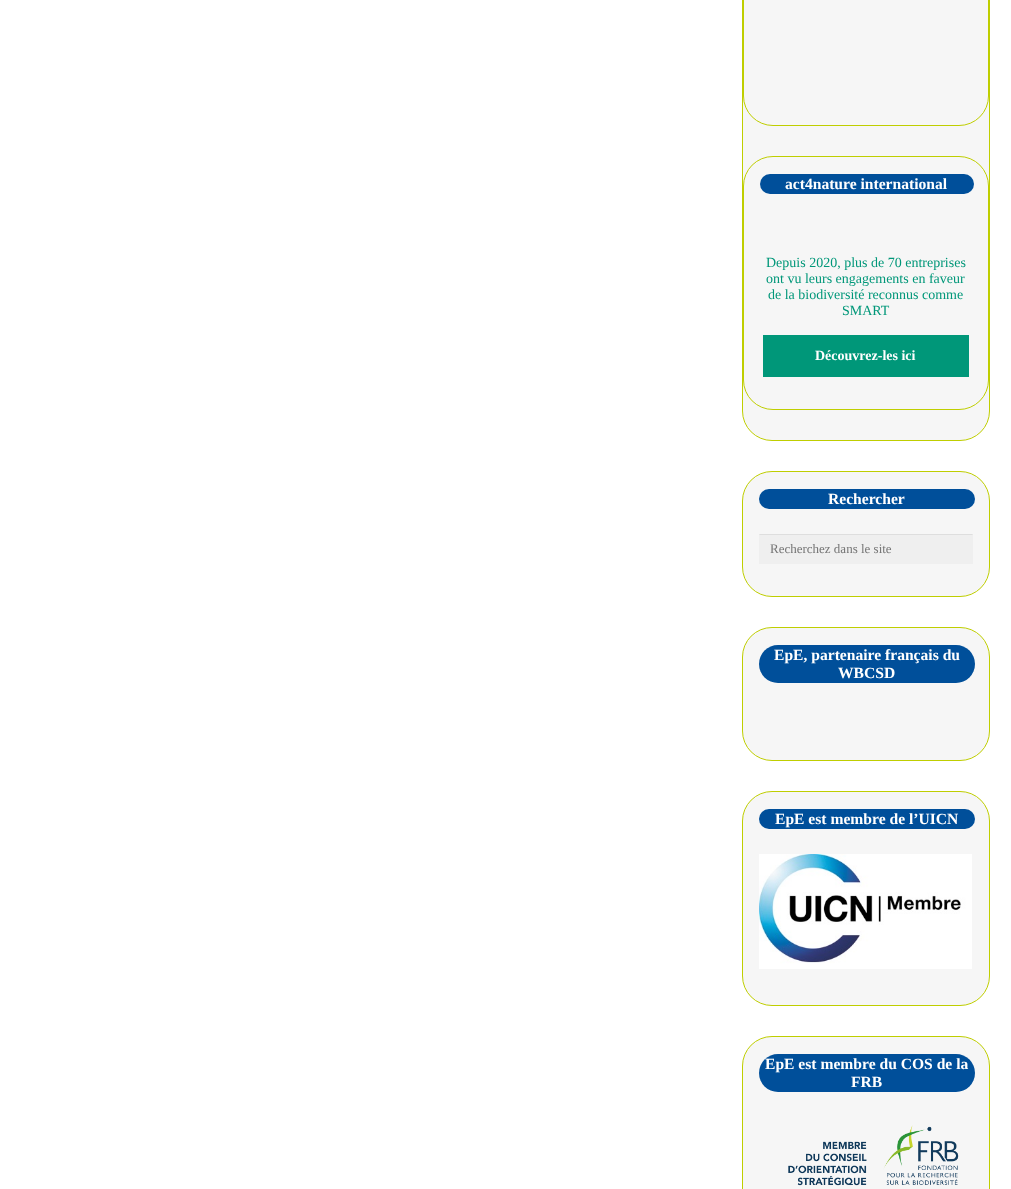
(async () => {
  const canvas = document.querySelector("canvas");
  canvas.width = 1011;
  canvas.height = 1189;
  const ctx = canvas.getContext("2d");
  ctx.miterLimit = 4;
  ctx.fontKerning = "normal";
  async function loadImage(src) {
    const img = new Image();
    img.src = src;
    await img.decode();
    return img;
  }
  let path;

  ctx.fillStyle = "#ffffff";
  ctx.fillRect(0, 0, 1011, 1189);
  ctx.fillStyle = "#f6f6f6";
  ctx.beginPath();
  ctx.roundRect(742.5, -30.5, 247, 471, 29.5);
  ctx.fill();
  ctx.strokeStyle = "#bfce00";
  ctx.stroke();
  ctx.beginPath();
  ctx.roundRect(743.5, -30.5, 245, 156, 29.5);
  ctx.stroke();
  ctx.beginPath();
  ctx.roundRect(743.5, 156.5, 245, 253, 29.5);
  ctx.stroke();
  ctx.fillStyle = "#004f9a";
  ctx.beginPath();
  ctx.roundRect(760, 174, 214, 20, 10);
  ctx.fill();
  ctx.fillStyle = "#009779";
  ctx.fillRect(763, 335, 206, 42);
  ctx.fillStyle = "#f6f6f6";
  ctx.beginPath();
  ctx.roundRect(742.5, 471.5, 247, 125, 29.5);
  ctx.fill();
  ctx.stroke();
  ctx.fillStyle = "#004f9a";
  ctx.beginPath();
  ctx.roundRect(759, 489, 216, 20, 10);
  ctx.fill();
  ctx.fillStyle = "#efefef";
  ctx.fillRect(759, 534, 214, 30);
  ctx.fillStyle = "#dedede";
  path = new Path2D("M759 534H973L972 535H760Z");
  ctx.fill(path);
  ctx.fillStyle = "#f6f6f6";
  ctx.beginPath();
  ctx.roundRect(742.5, 627.5, 247, 133, 29.5);
  ctx.fill();
  ctx.stroke();
  ctx.fillStyle = "#004f9a";
  ctx.beginPath();
  ctx.roundRect(759, 645, 216, 38, 19);
  ctx.fill();
  ctx.fillStyle = "#f6f6f6";
  ctx.beginPath();
  ctx.roundRect(742.5, 791.5, 247, 214, 29.5);
  ctx.fill();
  ctx.stroke();
  ctx.fillStyle = "#004f9a";
  ctx.beginPath();
  ctx.roundRect(759, 809, 216, 20, 10);
  ctx.fill();
  ctx.drawImage(await loadImage("img/1.png"), 759, 854, 213, 115);
  ctx.fillStyle = "#f6f6f6";
  ctx.beginPath();
  ctx.roundRect(742.5, 1036.5, 247, 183, 29.5);
  ctx.fill();
  ctx.stroke();
  ctx.fillStyle = "#004f9a";
  ctx.beginPath();
  ctx.roundRect(759, 1054, 216, 38, 19);
  ctx.fill();
  ctx.drawImage(await loadImage("img/2.png"), 788, 1125, 171, 61);
  ctx.font = "bold 15.6px Liberation Serif";
  ctx.fillStyle = "#ffffff";
  ctx.fillText("act4nature international", 785, 189);
  ctx.font = "14px Liberation Serif";
  ctx.fillStyle = "#009779";
  for (const [text, x, y] of [
    ["Depuis 2020, plus de 70 entreprises", 766, 267],
    ["ont vu leurs engagements en faveur", 766, 283],
    ["de la biodiversité reconnus comme", 768, 299],
    ["SMART", 842, 315],
  ]) {
    ctx.fillText(text, x, y);
  }
  ctx.font = "bold 14px Liberation Serif";
  ctx.fillStyle = "#ffffff";
  ctx.fillText("Découvrez-les ici", 815, 360);
  ctx.font = "bold 15.6px Liberation Serif";
  ctx.fillText("Rechercher", 828, 504);
  ctx.font = "13px Liberation Serif";
  ctx.fillStyle = "#757575";
  ctx.fillText("Recherchez dans le site", 770, 553);
  ctx.font = "bold 15.6px Liberation Serif";
  ctx.fillStyle = "#ffffff";
  for (const [text, x, y] of [
    ["EpE, partenaire français du", 774, 660],
    ["WBCSD", 838, 678],
    ["EpE est membre de l’UICN", 775, 824],
    ["EpE est membre du COS de la", 765, 1069],
    ["FRB", 851, 1087],
  ]) {
    ctx.fillText(text, x, y);
  }
})();
